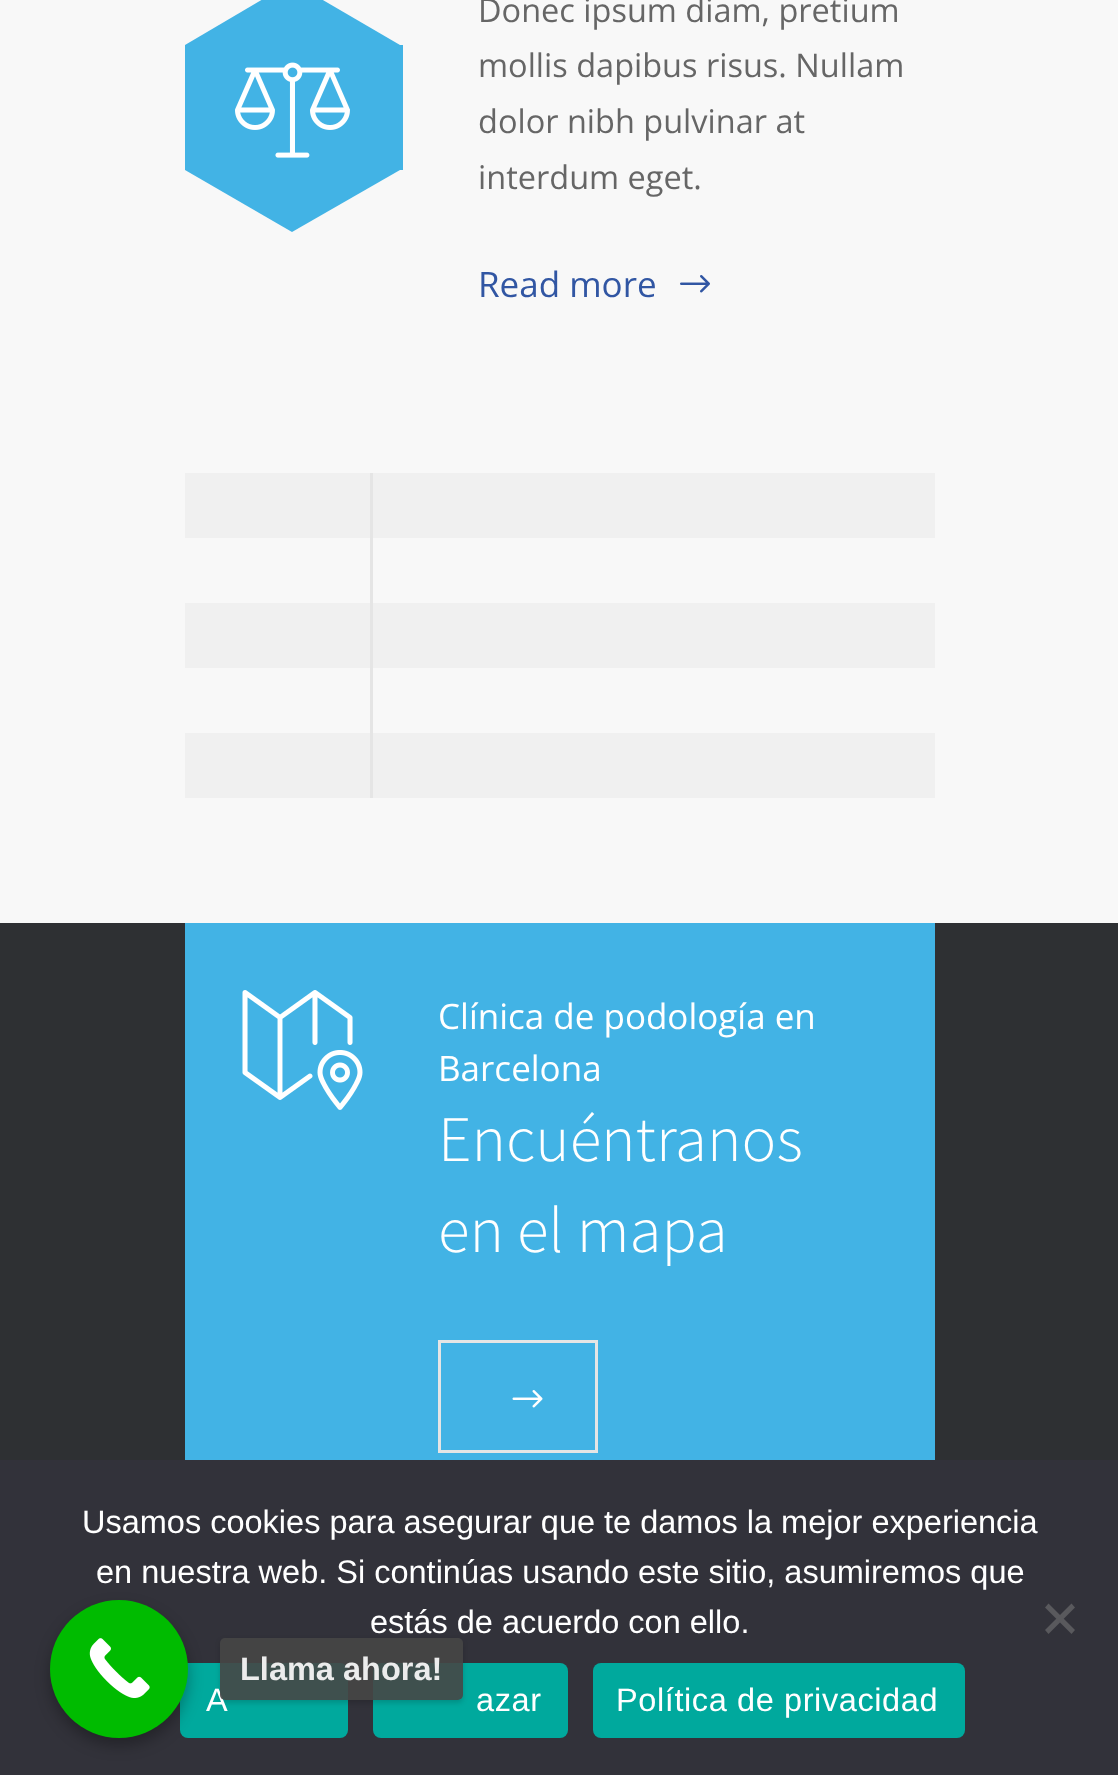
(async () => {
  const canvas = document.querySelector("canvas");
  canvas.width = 1118;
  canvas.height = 1775;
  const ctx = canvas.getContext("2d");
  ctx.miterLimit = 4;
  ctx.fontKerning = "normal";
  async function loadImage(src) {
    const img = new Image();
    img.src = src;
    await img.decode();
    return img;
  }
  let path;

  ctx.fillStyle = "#f8f8f8";
  ctx.fillRect(0, 0, 1118, 1775);
  ctx.fillStyle = "#42b3e5";
  ctx.fillRect(185, 45, 218, 125);
  path = new Path2D("M400 45H185L292-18Z");
  ctx.fill(path);
  ctx.drawImage(await loadImage("img/1.png"), 235, 62, 115, 96);
  path = new Path2D("M185 170H400L292 232Z");
  ctx.fill(path);
  ctx.drawImage(await loadImage("img/2.png"), 680, 275, 30, 18);
  for (const [x, y, w, h, color] of [
    [185, 473, 750, 65, "#f0f0f0"],
    [370, 473, 3, 130, "#e5e5e5"],
    [185, 603, 750, 65, "#f0f0f0"],
    [370, 603, 3, 130, "#e5e5e5"],
    [185, 733, 750, 65, "#f0f0f0"],
    [370, 733, 3, 65, "#e5e5e5"],
    [0, 923, 1118, 537, "#2e3033"],
    [185, 923, 750, 537, "#42b3e5"],
  ]) {
    ctx.fillStyle = color;
    ctx.fillRect(x, y, w, h);
  }
  ctx.drawImage(await loadImage("img/3.png"), 242, 990, 121, 120);
  ctx.strokeStyle = "#e5e5e5";
  ctx.lineWidth = 3;
  ctx.strokeRect(439.5, 1341.5, 157, 110);
  ctx.drawImage(await loadImage("img/4.png"), 512, 1390, 31, 18);
  ctx.fillStyle = "#32323a";
  ctx.fillRect(0, 1460, 1118, 315);
  ctx.fillStyle = "#59595d";
  path = new Path2D("M1071.5 1603.5L1075 1607.5L1048.5 1634L1045 1630Z");
  ctx.fill(path);
  path = new Path2D("M1045 1607.5L1048.5 1603.5L1075 1630L1071.5 1634Z");
  ctx.fill(path);
  ctx.fillStyle = "#00a99d";
  ctx.beginPath();
  ctx.roundRect(180, 1663, 168, 75, 8);
  ctx.fill();
  ctx.beginPath();
  ctx.roundRect(373, 1663, 195, 75, 8);
  ctx.fill();
  ctx.beginPath();
  ctx.roundRect(593, 1663, 372, 75, 8);
  ctx.fill();
  ctx.fillStyle = "rgba(0, 0, 0, 0.3)";
  ctx.filter = "blur(7.5px)";
  ctx.beginPath();
  ctx.roundRect(50, 1608, 138, 137, 68.5);
  ctx.fill();
  ctx.filter = "none";
  ctx.fillStyle = "#00bb00";
  ctx.beginPath();
  ctx.arc(119, 1669, 69, 0, Math.PI * 2);
  ctx.fill();
  ctx.drawImage(await loadImage("img/5.png"), 89, 1638, 61, 60);
  ctx.save();
  path = new Path2D("M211 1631H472V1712H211ZM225 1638H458C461 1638 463 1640 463 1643V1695C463 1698 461 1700 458 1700H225C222 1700 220 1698 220 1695V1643C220 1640 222 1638 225 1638Z");
  ctx.clip(path, "evenodd");
  ctx.fillStyle = "rgba(0, 0, 0, 0.15)";
  ctx.filter = "blur(2.5px)";
  ctx.beginPath();
  ctx.roundRect(220, 1640, 243, 63, 5);
  ctx.fill();
  ctx.filter = "none";
  ctx.restore();
  ctx.font = "32.5px Open Sans";
  ctx.fillStyle = "#666666";
  for (const [text, x, y] of [
    ["Donec ipsum diam, pretium", 478, 22],
    ["mollis dapibus risus. Nullam", 478, 77],
    ["dolor nibh pulvinar at", 478, 133],
    ["interdum eget.", 478, 189],
  ]) {
    ctx.fillText(text, x, y);
  }
  ctx.font = "35px Open Sans";
  ctx.fillStyle = "#3156a3";
  ctx.fillText("Read more", 478, 297);
  ctx.fillStyle = "#ffffff";
  ctx.fillText("Clínica de podología en", 438, 1029);
  ctx.fillText("Barcelona", 438, 1081);
  ctx.font = "300 65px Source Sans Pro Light";
  ctx.fillText("Encuéntranos", 438, 1161);
  ctx.fillText("en el mapa", 438, 1252);
  ctx.font = "32.5px Liberation Sans";
  for (const [text, x, y] of [
    ["Usamos cookies para asegurar que te damos la mejor experiencia", 82, 1533],
    ["en nuestra web. Si continúas usando este sitio, asumiremos que", 96, 1583],
    ["estás de acuerdo con ello.", 370, 1633],
  ]) {
    ctx.fillText(text, x, y);
  }
  ctx.letterSpacing = "0.6px";
  for (const [text, x, y] of [
    ["A", 206, 1711],
    ["azar", 476, 1711],
    ["Política de privacidad", 616, 1711],
  ]) {
    ctx.fillText(text, x, y);
  }
  ctx.fillStyle = "rgba(70, 70, 70, 0.9)";
  ctx.beginPath();
  ctx.roundRect(220, 1638, 243, 62, 5);
  ctx.fill();
  ctx.letterSpacing = "0px";
  ctx.font = "bold 32.5px Liberation Sans";
  ctx.fillStyle = "#ececec";
  ctx.fillText("Llama ahora!", 240, 1680);
})();
